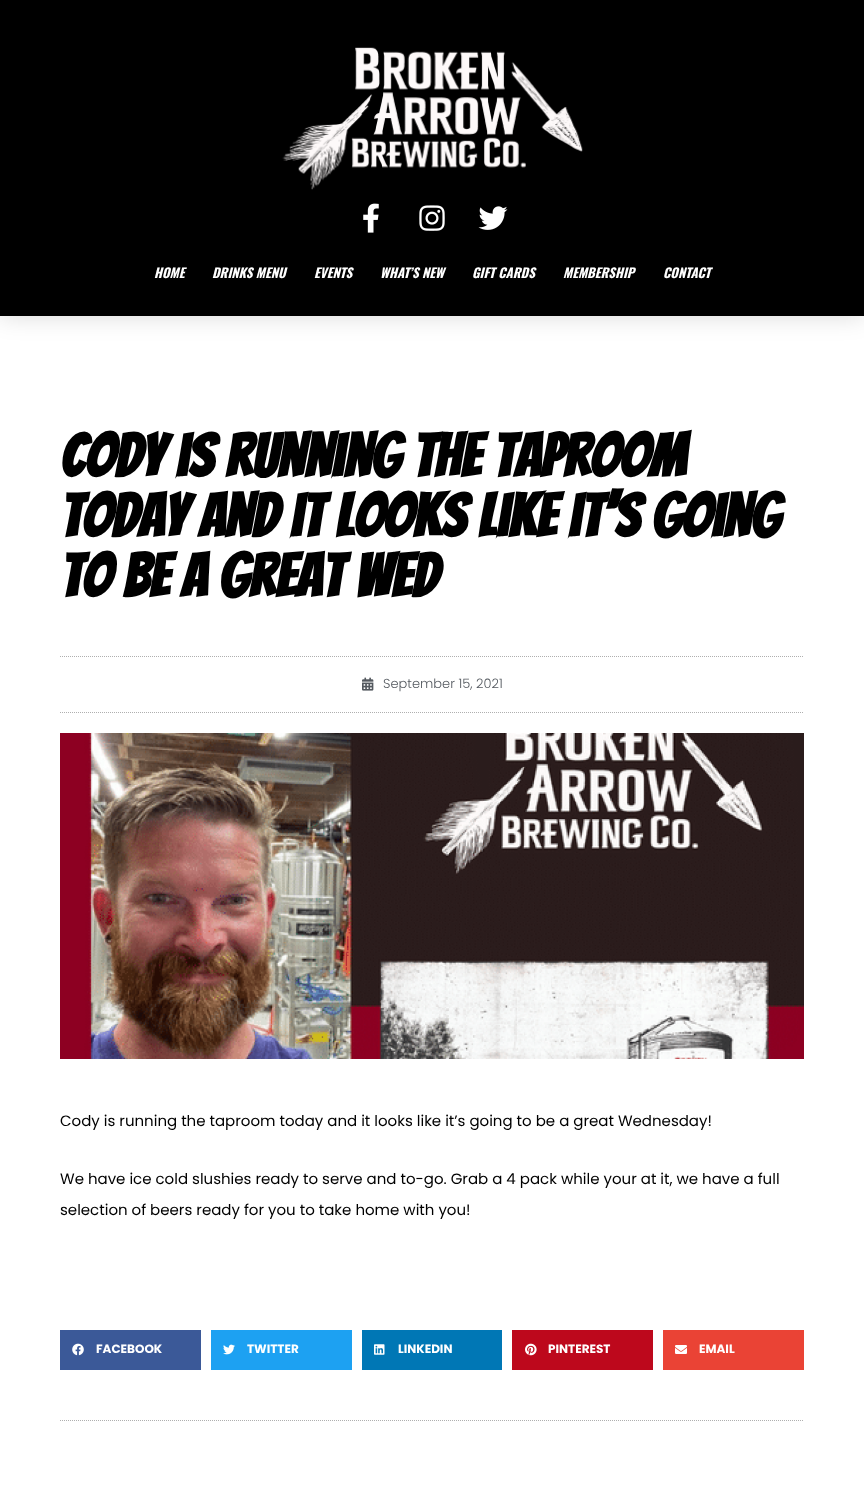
(async () => {
  const canvas = document.querySelector("canvas");
  canvas.width = 864;
  canvas.height = 1509;
  const ctx = canvas.getContext("2d");
  ctx.miterLimit = 4;
  ctx.fontKerning = "normal";
  async function loadImage(src) {
    const img = new Image();
    img.src = src;
    await img.decode();
    return img;
  }
  let path;

  ctx.fillStyle = "#ffffff";
  ctx.fillRect(0, 0, 864, 1509);
  ctx.fillStyle = "rgba(0, 0, 0, 0.15)";
  ctx.filter = "blur(12px)";
  ctx.beginPath();
  ctx.rect(0, 0, 864, 316);
  ctx.fill();
  ctx.filter = "none";
  ctx.fillStyle = "#000000";
  ctx.fillRect(0, 0, 864, 316);
  ctx.drawImage(await loadImage("img/1.png"), 282, 47, 301, 143);
  ctx.drawImage(await loadImage("img/2.png"), 363, 203, 16, 30);
  ctx.drawImage(await loadImage("img/3.png"), 419, 205, 26, 26);
  ctx.drawImage(await loadImage("img/4.png"), 478, 206, 30, 24);
  path = new Path2D("M60 656.5H804");
  ctx.strokeStyle = "#afafaf";
  ctx.setLineDash([1, 1]);
  ctx.stroke(path);
  path = new Path2D("M60 712.5H804");
  ctx.stroke(path);
  ctx.drawImage(await loadImage("img/5.png"), 362, 677, 12, 14);
  ctx.drawImage(await loadImage("img/6.png"), 60, 733, 744, 326);
  ctx.fillStyle = "#3b5998";
  ctx.fillRect(60, 1330, 141, 40);
  ctx.drawImage(await loadImage("img/7.png"), 72, 1343, 12, 13);
  ctx.fillStyle = "#1da1f2";
  ctx.fillRect(211, 1330, 141, 40);
  ctx.drawImage(await loadImage("img/8.png"), 223, 1344, 12, 11);
  ctx.fillStyle = "#0077b5";
  ctx.fillRect(362, 1330, 140, 40);
  ctx.drawImage(await loadImage("img/9.png"), 374, 1344, 11, 11);
  ctx.fillStyle = "#bd081c";
  ctx.fillRect(512, 1330, 141, 40);
  ctx.drawImage(await loadImage("img/10.png"), 525, 1343, 12, 13);
  ctx.fillStyle = "#ea4335";
  ctx.fillRect(663, 1330, 141, 40);
  ctx.drawImage(await loadImage("img/11.png"), 675, 1345, 12, 9);
  path = new Path2D("M60 1420.5H804");
  ctx.stroke(path);
  ctx.font = "italic bold 13px Oswald";
  ctx.fillStyle = "#ffffff";
  for (const [text, x, y] of [
    ["HOME", 154, 278],
    ["DRINKS MENU", 212, 278],
    ["EVENTS", 314, 278],
    ["WHAT’S NEW", 380, 278],
    ["GIFT CARDS", 472, 278],
    ["MEMBERSHIP", 563, 278],
    ["CONTACT", 663, 278],
  ]) {
    ctx.fillText(text, x, y);
  }
  ctx.font = "bold 60px Bangers";
  ctx.fillStyle = "#000000";
  for (const [text, x, y] of [
    ["Cody is running the taproom", 60, 477],
    ["today and it looks like it’s going", 60, 537],
    ["to be a great Wed", 60, 597],
  ]) {
    ctx.fillText(text, x, y);
  }
  ctx.font = "300 13px Poppins";
  ctx.fillStyle = "#54595f";
  ctx.fillText("September 15, 2021", 383, 688);
  ctx.font = "15px Poppins";
  ctx.fillStyle = "#000000";
  for (const [text, x, y] of [
    ["Cody is running the taproom today and it looks like it’s going to be a great Wednesday!", 60, 1126],
    ["We have ice cold slushies ready to serve and to-go. Grab a 4 pack while your at it, we have a full", 60, 1184],
    ["selection of beers ready for you to take home with you!", 60, 1215],
  ]) {
    ctx.fillText(text, x, y);
  }
  ctx.font = "bold 12px Poppins";
  ctx.fillStyle = "#ffffff";
  for (const [text, x, y] of [
    ["FACEBOOK", 96, 1353],
    ["TWITTER", 247, 1353],
    ["LINKEDIN", 398, 1353],
    ["PINTEREST", 548, 1353],
    ["EMAIL", 699, 1353],
  ]) {
    ctx.fillText(text, x, y);
  }
})();
